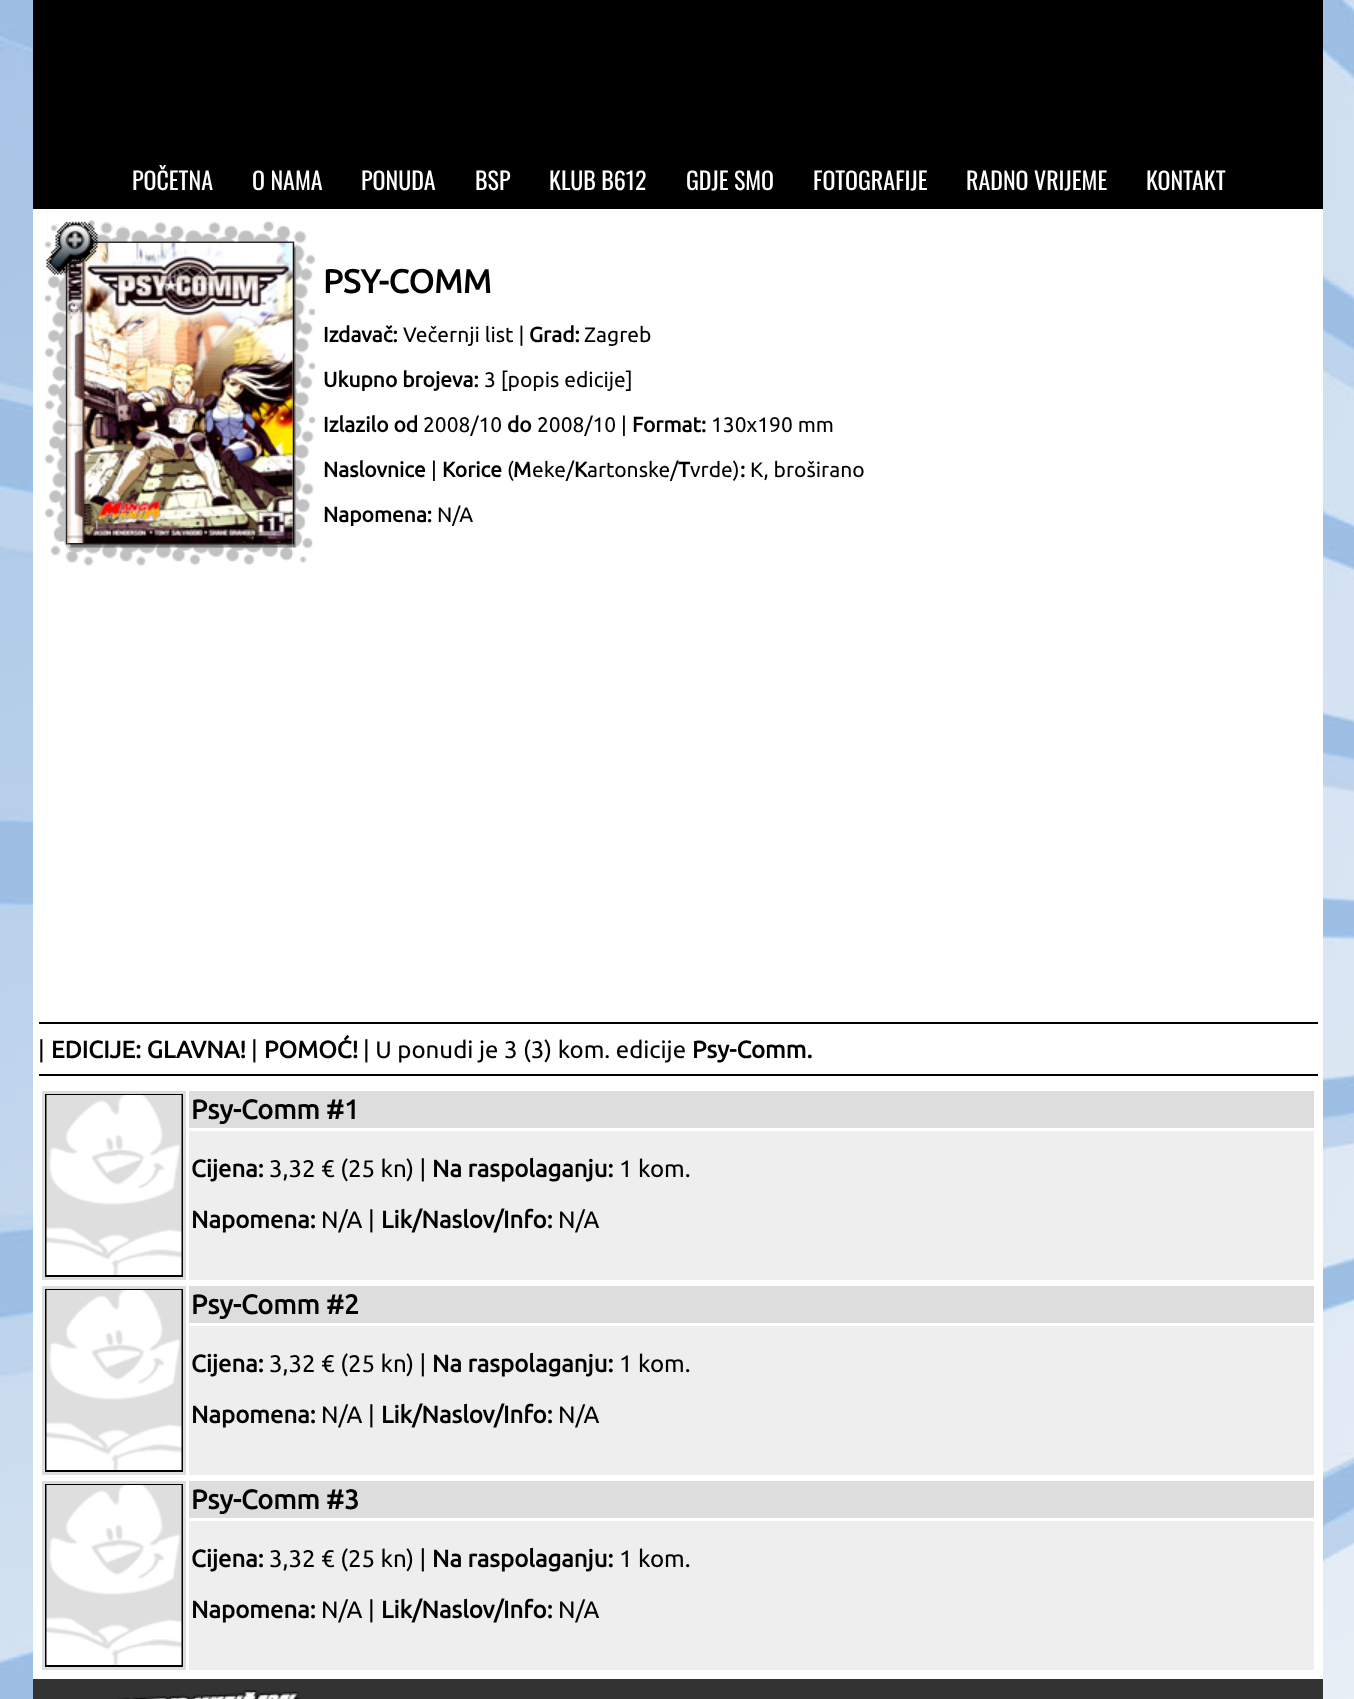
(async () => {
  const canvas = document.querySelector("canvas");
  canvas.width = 1354;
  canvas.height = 1699;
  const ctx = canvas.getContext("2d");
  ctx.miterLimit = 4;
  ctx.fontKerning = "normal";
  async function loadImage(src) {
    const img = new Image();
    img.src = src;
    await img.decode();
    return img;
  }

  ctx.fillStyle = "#ffffff";
  ctx.fillRect(0, 0, 1354, 1699);
  ctx.drawImage(await loadImage("img/1.png"), 0, 0, 1354, 1699);
  ctx.fillStyle = "#000000";
  ctx.fillRect(33, 0, 1290, 209);
  ctx.fillStyle = "#ffffff";
  ctx.fillRect(33, 209, 1290, 1470);
  ctx.drawImage(await loadImage("img/2.png"), 45, 224, 23, 19);
  ctx.drawImage(await loadImage("img/3.png"), 67, 220, 226, 23);
  ctx.drawImage(await loadImage("img/4.png"), 292, 230, 15, 13);
  ctx.drawImage(await loadImage("img/5.png"), 45, 243, 23, 300);
  ctx.drawImage(await loadImage("img/7.png"), 292, 243, 23, 300);
  ctx.drawImage(await loadImage("img/6.png"), 67, 243, 226, 300);
  ctx.drawImage(await loadImage("img/8.png"), 50, 543, 18, 17);
  ctx.drawImage(await loadImage("img/9.png"), 67, 543, 226, 23);
  ctx.drawImage(await loadImage("img/10.png"), 292, 543, 21, 20);
  ctx.drawImage(await loadImage("img/11.png"), 46, 221, 52, 54);
  for (const [x, y, w, h, color] of [
    [39, 1022, 1279, 2, "#000000"],
    [39, 1074, 1279, 2, "#000000"],
    [42, 1091, 144, 189, "#dddddd"],
  ]) {
    ctx.fillStyle = color;
    ctx.fillRect(x, y, w, h);
  }
  ctx.strokeStyle = "#000000";
  ctx.lineWidth = 2;
  ctx.strokeRect(46, 1095, 136, 181);
  ctx.drawImage(await loadImage("img/12.png"), 46, 1095, 136, 180);
  for (const [x, y, w, h, color] of [
    [189, 1091, 1125, 37, "#dddddd"],
    [189, 1131, 1125, 149, "#eeeeee"],
    [42, 1286, 144, 189, "#dddddd"],
  ]) {
    ctx.fillStyle = color;
    ctx.fillRect(x, y, w, h);
  }
  ctx.strokeRect(46, 1290, 136, 181);
  ctx.drawImage(await loadImage("img/12.png"), 46, 1290, 136, 180);
  for (const [x, y, w, h, color] of [
    [189, 1286, 1125, 37, "#dddddd"],
    [189, 1326, 1125, 149, "#eeeeee"],
    [42, 1481, 144, 189, "#dddddd"],
  ]) {
    ctx.fillStyle = color;
    ctx.fillRect(x, y, w, h);
  }
  ctx.strokeRect(46, 1485, 136, 181);
  ctx.drawImage(await loadImage("img/12.png"), 46, 1485, 136, 180);
  for (const [x, y, w, h, color] of [
    [189, 1481, 1125, 37, "#dddddd"],
    [189, 1521, 1125, 149, "#eeeeee"],
    [33, 1679, 1290, 20, "#333333"],
  ]) {
    ctx.fillStyle = color;
    ctx.fillRect(x, y, w, h);
  }
  ctx.drawImage(await loadImage("img/13.png"), 118, 1690, 183, 9);
  ctx.font = "24px Oswald";
  ctx.fillStyle = "#ffffff";
  for (const [text, x, y] of [
    ["POČETNA", 132, 190],
    ["O NAMA", 252, 190],
    ["PONUDA", 361, 190],
    ["BSP", 475, 190],
    ["KLUB B612", 549, 190],
    ["GDJE SMO", 686, 190],
    ["FOTOGRAFIJE", 813, 190],
    ["RADNO VRIJEME", 966, 190],
    ["KONTAKT", 1146, 190],
  ]) {
    ctx.fillText(text, x, y);
  }
  ctx.font = "bold 33px Ubuntu";
  ctx.fillStyle = "#000000";
  ctx.fillText("PSY-COMM", 323, 293);
  ctx.font = "bold 21px Ubuntu";
  ctx.fillText("Izdavač:", 323, 342);
  ctx.font = "21px Ubuntu";
  ctx.fillText("Večernji list |", 403, 342);
  ctx.font = "bold 21px Ubuntu";
  ctx.fillText("Grad:", 529, 342);
  ctx.font = "21px Ubuntu";
  ctx.fillText("Zagreb", 584, 342);
  ctx.font = "bold 21px Ubuntu";
  ctx.fillText("Ukupno brojeva:", 323, 387);
  ctx.font = "21px Ubuntu";
  ctx.fillText("3 [popis edicije]", 484, 387);
  ctx.font = "bold 21px Ubuntu";
  ctx.fillText("Izlazilo od", 323, 432);
  ctx.font = "21px Ubuntu";
  ctx.fillText("2008/10", 423, 432);
  ctx.font = "bold 21px Ubuntu";
  ctx.fillText("do", 507, 432);
  ctx.font = "21px Ubuntu";
  ctx.fillText("2008/10 |", 537, 432);
  ctx.font = "bold 21px Ubuntu";
  ctx.fillText("Format:", 632, 432);
  ctx.font = "21px Ubuntu";
  ctx.fillText("130x190 mm", 711, 432);
  ctx.font = "bold 21px Ubuntu";
  ctx.fillText("Naslovnice", 323, 477);
  ctx.font = "21px Ubuntu";
  ctx.fillText("|", 431, 477);
  ctx.font = "bold 21px Ubuntu";
  ctx.fillText("Korice", 442, 477);
  ctx.font = "21px Ubuntu";
  ctx.fillText("(", 507, 477);
  ctx.font = "bold 21px Ubuntu";
  ctx.fillText("M", 513, 477);
  ctx.font = "21px Ubuntu";
  ctx.fillText("eke/", 532, 477);
  ctx.font = "bold 21px Ubuntu";
  ctx.fillText("K", 574, 477);
  ctx.font = "21px Ubuntu";
  ctx.fillText("artonske/", 587, 477);
  ctx.font = "bold 21px Ubuntu";
  ctx.fillText("T", 678, 477);
  ctx.font = "21px Ubuntu";
  ctx.fillText("vrde)", 690, 477);
  ctx.font = "bold 21px Ubuntu";
  ctx.fillText(":", 740, 477);
  ctx.font = "21px Ubuntu";
  ctx.fillText("K, broširano", 750, 477);
  ctx.font = "bold 21px Ubuntu";
  ctx.fillText("Napomena:", 323, 522);
  ctx.font = "21px Ubuntu";
  ctx.fillText("N/A", 437, 522);
  ctx.font = "24px Ubuntu";
  ctx.fillText("|", 38, 1058);
  ctx.font = "bold 24px Ubuntu";
  ctx.fillText("EDICIJE: GLAVNA!", 51, 1058);
  ctx.font = "24px Ubuntu";
  ctx.fillText("|", 251, 1058);
  ctx.font = "bold 24px Ubuntu";
  ctx.fillText("POMOĆ!", 264, 1058);
  ctx.font = "24px Ubuntu";
  ctx.fillText("| U ponudi je 3 (3) kom. edicije", 363, 1058);
  ctx.font = "bold 24px Ubuntu";
  ctx.fillText("Psy-Comm.", 692, 1058);
  ctx.font = "bold 27px Ubuntu";
  ctx.fillText("Psy-Comm #1", 191, 1119);
  ctx.font = "bold 24px Ubuntu";
  ctx.fillText("Cijena:", 191, 1177);
  ctx.font = "24px Ubuntu";
  ctx.fillText("3,32 € (25 kn) |", 269, 1177);
  ctx.font = "bold 24px Ubuntu";
  ctx.fillText("Na raspolaganju:", 432, 1177);
  ctx.font = "24px Ubuntu";
  ctx.fillText("1 kom.", 619, 1177);
  ctx.font = "bold 24px Ubuntu";
  ctx.fillText("Napomena:", 191, 1228);
  ctx.font = "24px Ubuntu";
  ctx.fillText("N/A |", 321, 1228);
  ctx.font = "bold 24px Ubuntu";
  ctx.fillText("Lik/Naslov/Info:", 381, 1228);
  ctx.font = "24px Ubuntu";
  ctx.fillText("N/A", 558, 1228);
  ctx.font = "bold 27px Ubuntu";
  ctx.fillText("Psy-Comm #2", 191, 1314);
  ctx.font = "bold 24px Ubuntu";
  ctx.fillText("Cijena:", 191, 1372);
  ctx.font = "24px Ubuntu";
  ctx.fillText("3,32 € (25 kn) |", 269, 1372);
  ctx.font = "bold 24px Ubuntu";
  ctx.fillText("Na raspolaganju:", 432, 1372);
  ctx.font = "24px Ubuntu";
  ctx.fillText("1 kom.", 619, 1372);
  ctx.font = "bold 24px Ubuntu";
  ctx.fillText("Napomena:", 191, 1423);
  ctx.font = "24px Ubuntu";
  ctx.fillText("N/A |", 321, 1423);
  ctx.font = "bold 24px Ubuntu";
  ctx.fillText("Lik/Naslov/Info:", 381, 1423);
  ctx.font = "24px Ubuntu";
  ctx.fillText("N/A", 558, 1423);
  ctx.font = "bold 27px Ubuntu";
  ctx.fillText("Psy-Comm #3", 191, 1509);
  ctx.font = "bold 24px Ubuntu";
  ctx.fillText("Cijena:", 191, 1567);
  ctx.font = "24px Ubuntu";
  ctx.fillText("3,32 € (25 kn) |", 269, 1567);
  ctx.font = "bold 24px Ubuntu";
  ctx.fillText("Na raspolaganju:", 432, 1567);
  ctx.font = "24px Ubuntu";
  ctx.fillText("1 kom.", 619, 1567);
  ctx.font = "bold 24px Ubuntu";
  ctx.fillText("Napomena:", 191, 1618);
  ctx.font = "24px Ubuntu";
  ctx.fillText("N/A |", 321, 1618);
  ctx.font = "bold 24px Ubuntu";
  ctx.fillText("Lik/Naslov/Info:", 381, 1618);
  ctx.font = "24px Ubuntu";
  ctx.fillText("N/A", 558, 1618);
})();
